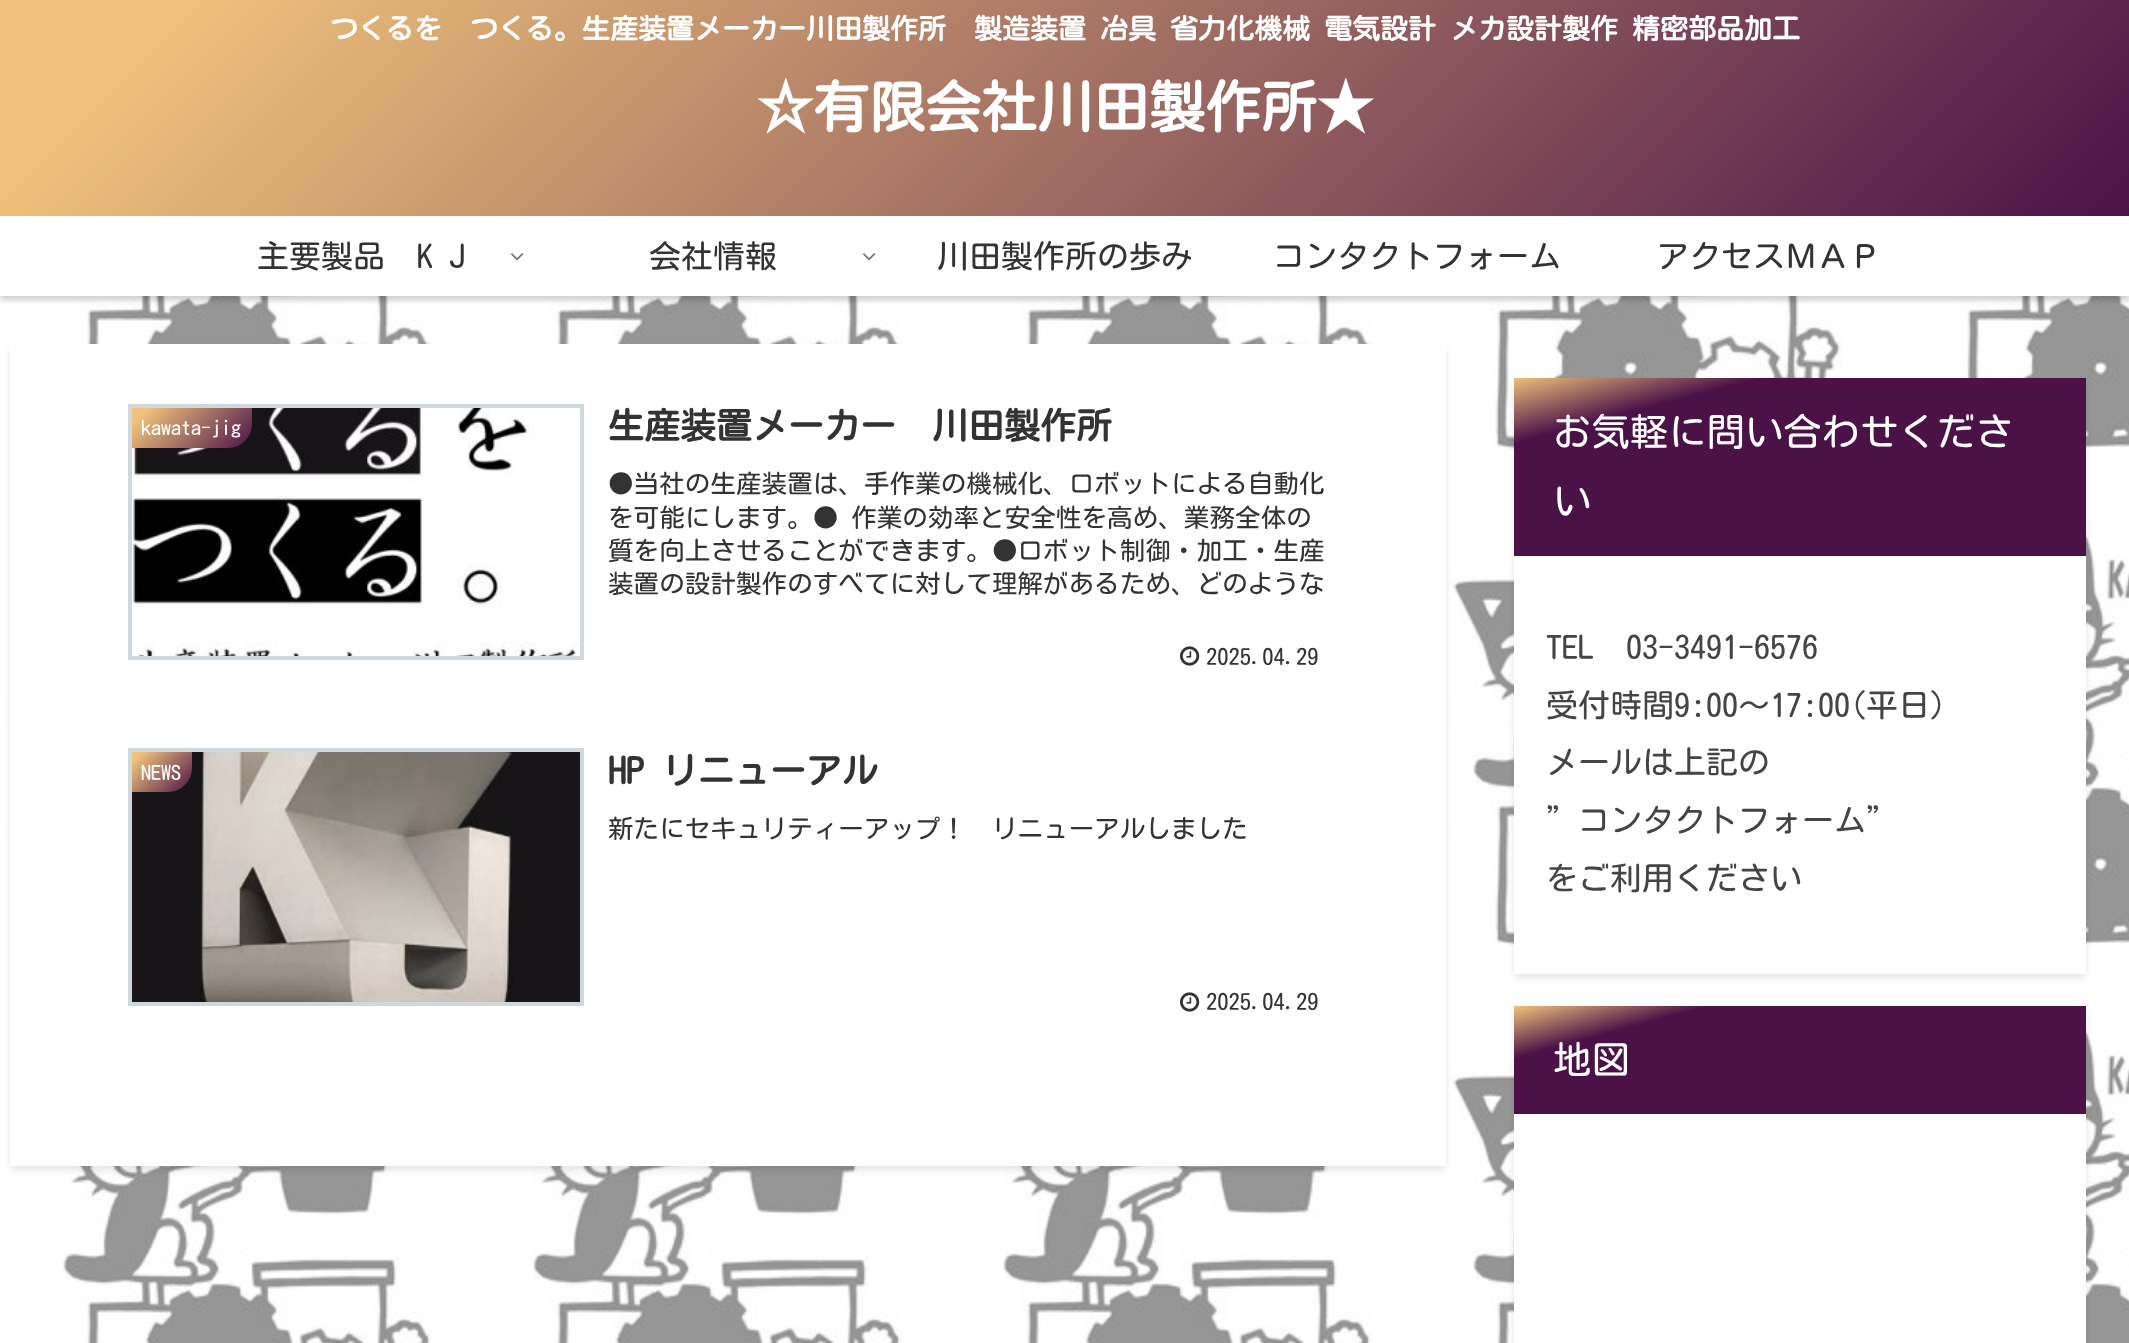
(async () => {
  const canvas = document.querySelector("canvas");
  canvas.width = 2129;
  canvas.height = 1343;
  const ctx = canvas.getContext("2d");
  ctx.miterLimit = 4;
  ctx.fontKerning = "normal";
  async function loadImage(src) {
    const img = new Image();
    img.src = src;
    await img.decode();
    return img;
  }
  let gradient;

  ctx.fillStyle = "#ffffff";
  ctx.fillRect(0, 0, 2129, 1343);
  ctx.drawImage(await loadImage("img/1.png"), 0, 296, 2129, 1047);
  ctx.fillStyle = "rgba(0, 0, 0, 0.1)";
  ctx.filter = "blur(3px)";
  ctx.beginPath();
  ctx.rect(0, -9, 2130, 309);
  ctx.fill();
  ctx.filter = "none";
  ctx.fillStyle = "#ffffff";
  ctx.fillRect(0, 216, 2129, 80);
  gradient = ctx.createLinearGradient(461, -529, 1669, 678);
  gradient.addColorStop(0.1, "#f0c27b");
  gradient.addColorStop(1, "#4b1248");
  ctx.fillStyle = gradient;
  ctx.fillRect(0, 0, 2129, 216);
  ctx.save();
  ctx.beginPath();
  ctx.rect(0, 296, 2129, 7);
  ctx.clip();
  ctx.fillStyle = "rgba(0, 0, 0, 0.1)";
  ctx.filter = "blur(3px)";
  ctx.beginPath();
  ctx.rect(0, 220, 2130, 80);
  ctx.fill();
  ctx.filter = "none";
  ctx.restore();
  ctx.drawImage(await loadImage("img/2.png"), 511, 253, 13, 8);
  ctx.drawImage(await loadImage("img/2.png"), 863, 253, 13, 8);
  ctx.fillStyle = "rgba(0, 0, 0, 0.1)";
  ctx.filter = "blur(3px)";
  ctx.beginPath();
  ctx.rect(10, 348, 1436, 822);
  ctx.fill();
  ctx.filter = "none";
  ctx.fillStyle = "#ffffff";
  ctx.fillRect(10, 344, 1436, 822);
  ctx.strokeStyle = "#cfd8dc";
  ctx.lineWidth = 4;
  ctx.strokeRect(130, 406, 452, 252);
  ctx.drawImage(await loadImage("img/3.png"), 132, 408, 448, 248);
  gradient = ctx.createLinearGradient(152, 388, 232, 468);
  gradient.addColorStop(0.1, "#f0c27b");
  gradient.addColorStop(1, "#4b1248");
  ctx.fillStyle = gradient;
  ctx.beginPath();
  ctx.roundRect(132, 408, 120, 40, [0, 0, 24, 0]);
  ctx.fill();
  ctx.drawImage(await loadImage("img/4.png"), 1180, 646, 20, 20);
  ctx.strokeRect(130, 750, 452, 254);
  ctx.drawImage(await loadImage("img/5.png"), 132, 752, 448, 250);
  gradient = ctx.createLinearGradient(137, 747, 187, 797);
  gradient.addColorStop(0.1, "#f0c27b");
  gradient.addColorStop(1, "#4b1248");
  ctx.fillStyle = gradient;
  ctx.beginPath();
  ctx.roundRect(132, 752, 60, 40, [0, 0, 24, 0]);
  ctx.fill();
  ctx.drawImage(await loadImage("img/4.png"), 1180, 992, 20, 20);
  ctx.fillStyle = "rgba(0, 0, 0, 0.1)";
  ctx.filter = "blur(3px)";
  ctx.beginPath();
  ctx.rect(1514, 382, 572, 596);
  ctx.fill();
  ctx.filter = "none";
  ctx.fillStyle = "#ffffff";
  ctx.fillRect(1514, 556, 572, 418);
  gradient = ctx.createLinearGradient(1759, 312, 1841, 622);
  gradient.addColorStop(0, "#f0c27b");
  gradient.addColorStop(0.2, "#4b1248");
  ctx.fillStyle = gradient;
  ctx.fillRect(1514, 378, 572, 178);
  ctx.fillStyle = "rgba(0, 0, 0, 0.1)";
  ctx.filter = "blur(3px)";
  ctx.beginPath();
  ctx.rect(1514, 1010, 572, 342);
  ctx.fill();
  ctx.filter = "none";
  ctx.fillStyle = "#ffffff";
  ctx.fillRect(1514, 1114, 572, 229);
  gradient = ctx.createLinearGradient(1767, 938, 1833, 1182);
  gradient.addColorStop(0, "#f0c27b");
  gradient.addColorStop(0.2, "#4b1248");
  ctx.fillStyle = gradient;
  ctx.fillRect(1514, 1006, 572, 108);
  ctx.font = "bold 28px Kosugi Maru";
  ctx.fillStyle = "#ffffff";
  ctx.fillText("つくるを　つくる。生産装置メーカー川田製作所　製造装置 冶具 省力化機械 電気設計 メカ設計製作 精密部品加工", 330, 39);
  ctx.font = "bold 56px Kosugi Maru";
  ctx.fillText("☆有限会社川田製作所★", 757, 128);
  ctx.font = "32px Kosugi Maru";
  ctx.fillStyle = "#333333";
  for (const [text, x, y] of [
    ["主要製品　K J", 257, 268],
    ["会社情報", 649, 268],
    ["川田製作所の歩み", 937, 268],
    ["コンタクトフォーム", 1273, 268],
    ["アクセスＭＡＰ", 1657, 268],
  ]) {
    ctx.fillText(text, x, y);
  }
  ctx.font = "20px Kosugi Maru";
  ctx.fillStyle = "#ffffff";
  ctx.fillText("kawata-jig", 141, 435);
  ctx.font = "bold 36px Kosugi Maru";
  ctx.fillStyle = "#333333";
  ctx.fillText("生産装置メーカー　川田製作所", 608, 439);
  ctx.font = "25.6px Kosugi Maru";
  for (const [text, x, y] of [
    ["●当社の生産装置は、手作業の機械化、ロボットによる自動化", 608, 493],
    ["を可能にします。● 作業の効率と安全性を高め、業務全体の", 608, 527],
    ["質を向上させることができます。●ロボット制御・加工・生産", 608, 560],
    ["装置の設計製作のすべてに対して理解があるため、どのような", 608, 593],
  ]) {
    ctx.fillText(text, x, y);
  }
  ctx.font = "22.5px Kosugi Maru";
  ctx.fillText("2025.04.29", 1206, 665);
  ctx.font = "20px Kosugi Maru";
  ctx.fillStyle = "#ffffff";
  ctx.fillText("NEWS", 141, 780);
  ctx.font = "bold 36px Kosugi Maru";
  ctx.fillStyle = "#333333";
  ctx.fillText("HP リニューアル", 608, 784);
  ctx.font = "25.6px Kosugi Maru";
  ctx.fillText("新たにセキュリティーアップ！　リニューアルしました", 608, 838);
  ctx.font = "22.5px Kosugi Maru";
  ctx.fillText("2025.04.29", 1206, 1010);
  ctx.font = "38.4px Kosugi Maru";
  ctx.fillStyle = "#ffffff";
  ctx.fillText("お気軽に問い合わせくださ", 1553, 446);
  ctx.fillText("い", 1553, 515);
  ctx.font = "32px Kosugi Maru";
  ctx.fillStyle = "#444444";
  for (const [text, x, y] of [
    ["TEL　03-3491-6576", 1546, 659],
    ["受付時間9:00～17:00(平日)", 1546, 717],
    ["メールは上記の", 1546, 774],
    ["”コンタクトフォーム”", 1546, 832],
    ["をご利用ください", 1546, 890],
  ]) {
    ctx.fillText(text, x, y);
  }
  ctx.font = "38.4px Kosugi Maru";
  ctx.fillStyle = "#ffffff";
  ctx.fillText("地図", 1553, 1074);
})();
